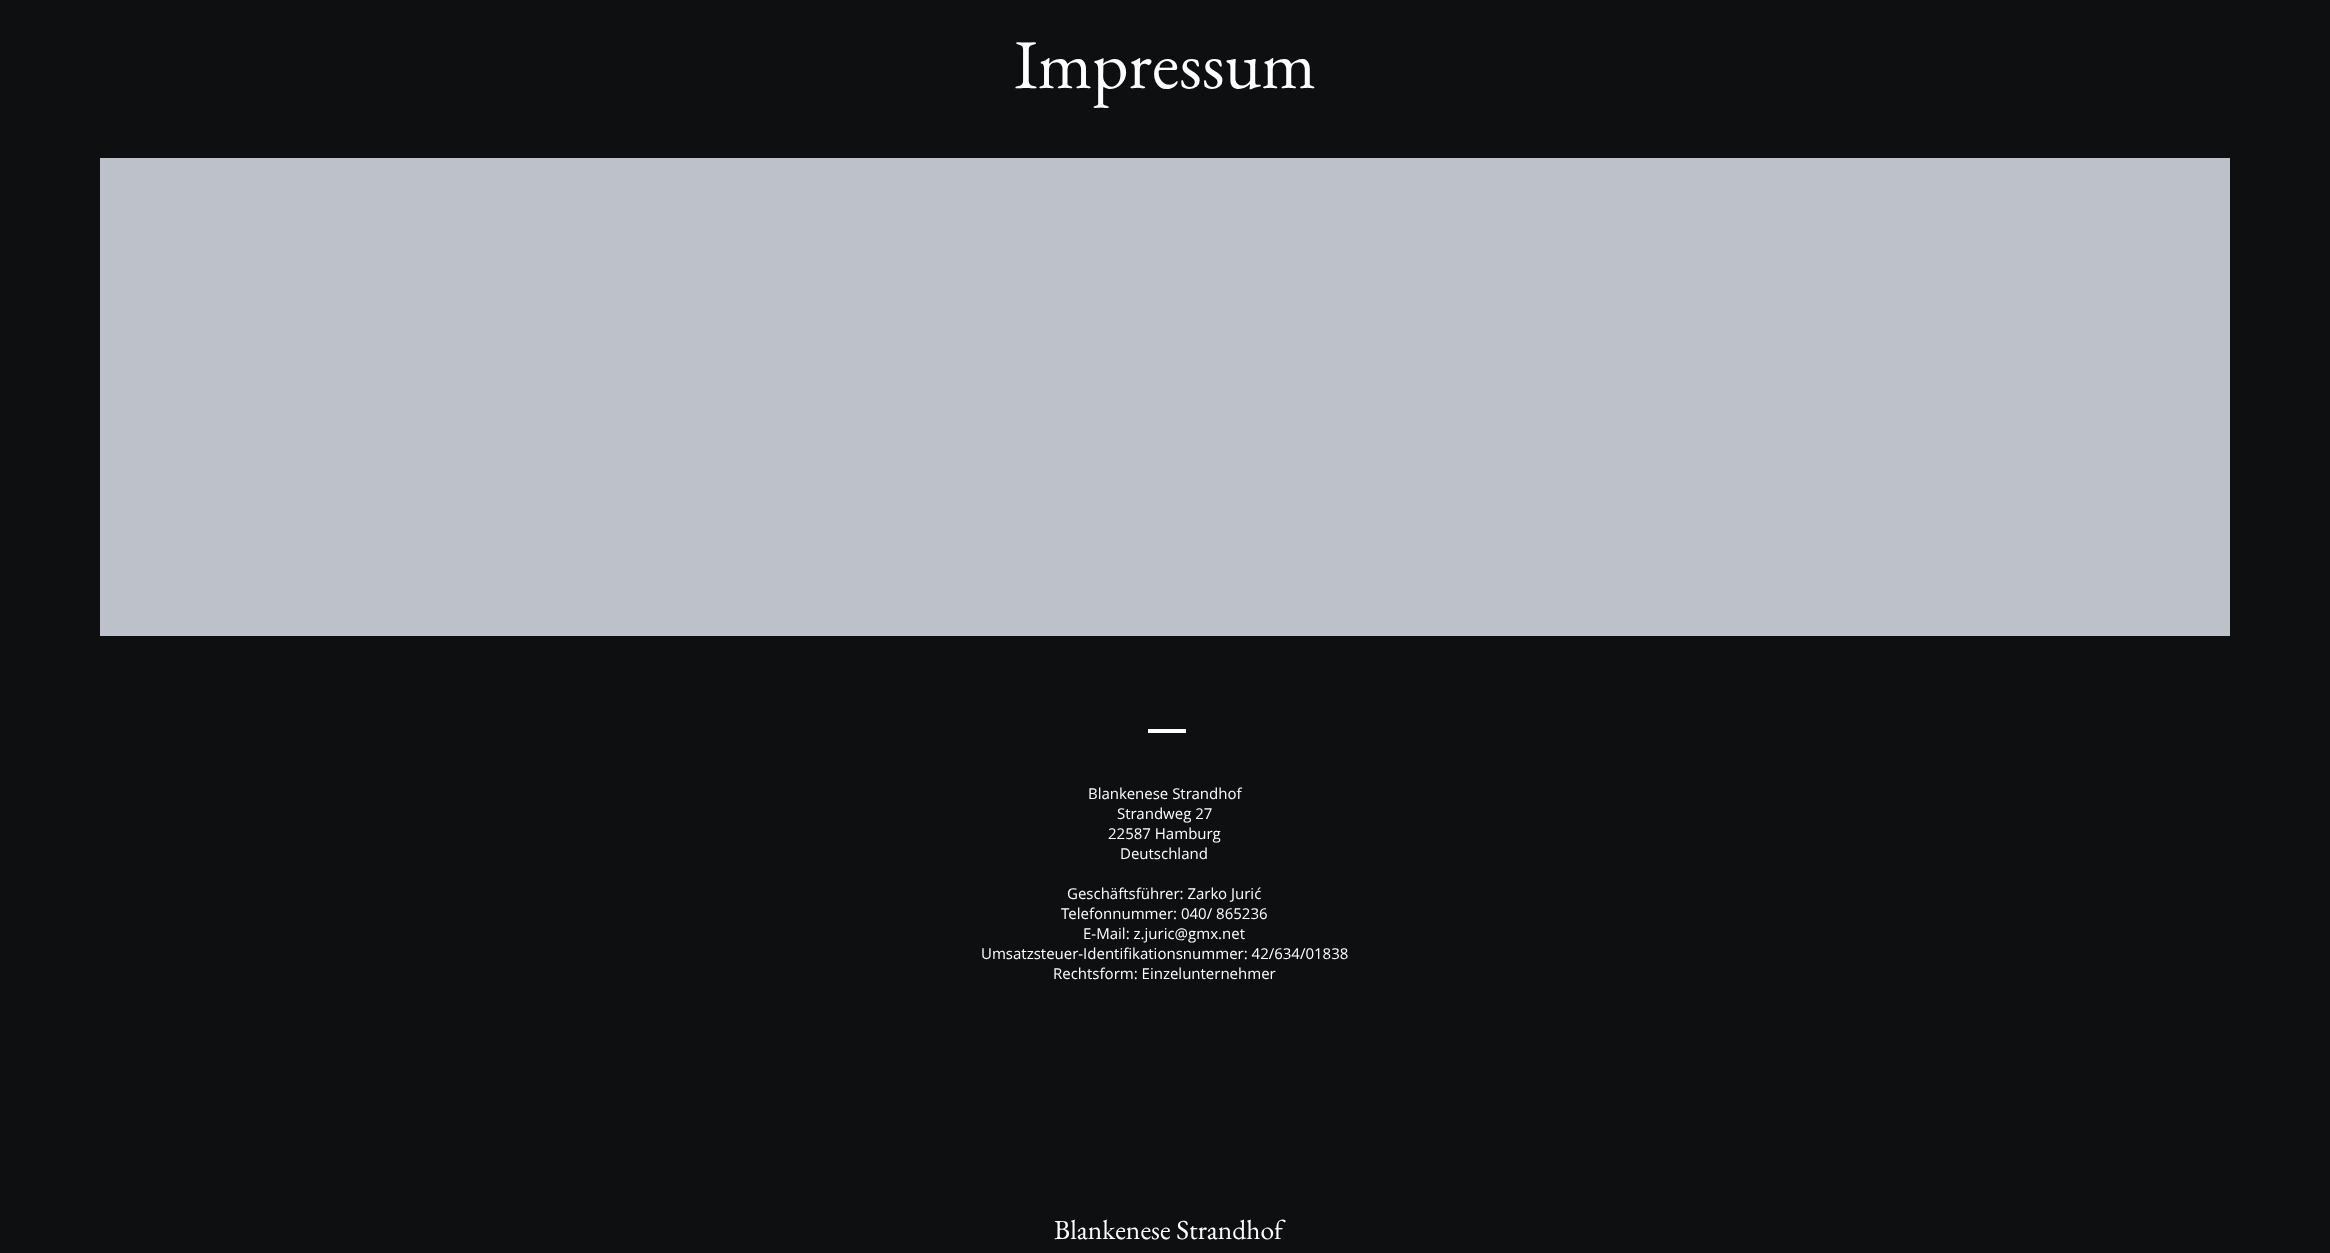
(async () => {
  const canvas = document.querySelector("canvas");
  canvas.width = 2330;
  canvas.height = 1253;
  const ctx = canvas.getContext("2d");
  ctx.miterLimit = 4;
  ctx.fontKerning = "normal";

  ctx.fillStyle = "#0e0f11";
  ctx.fillRect(0, 0, 2330, 1253);
  ctx.fillStyle = "#bdc1c9";
  ctx.fillRect(100, 158, 2130, 478);
  ctx.fillStyle = "#ffffff";
  ctx.fillRect(1148, 729, 38, 4);
  ctx.font = "70px EB Garamond";
  ctx.fillText("Impressum", 1014, 88);
  ctx.font = "15px Open Sans";
  for (const [text, x, y] of [
    ["Blankenese Strandhof", 1088, 799],
    ["Strandweg 27", 1117, 819],
    ["22587 Hamburg", 1108, 839],
    ["Deutschland", 1120, 859],
    ["Geschäftsführer: Zarko Jurić", 1067, 899],
    ["Telefonnummer: 040/ 865236", 1061, 919],
    ["E-Mail: z.juric@gmx.net", 1083, 939],
    ["Umsatzsteuer-Identifikationsnummer: 42/634/01838", 981, 959],
    ["Rechtsform: Einzelunternehmer", 1053, 979],
  ]) {
    ctx.fillText(text, x, y);
  }
  ctx.font = "27.5px EB Garamond";
  ctx.fillText("Blankenese Strandhof", 1054, 1239);
})();
